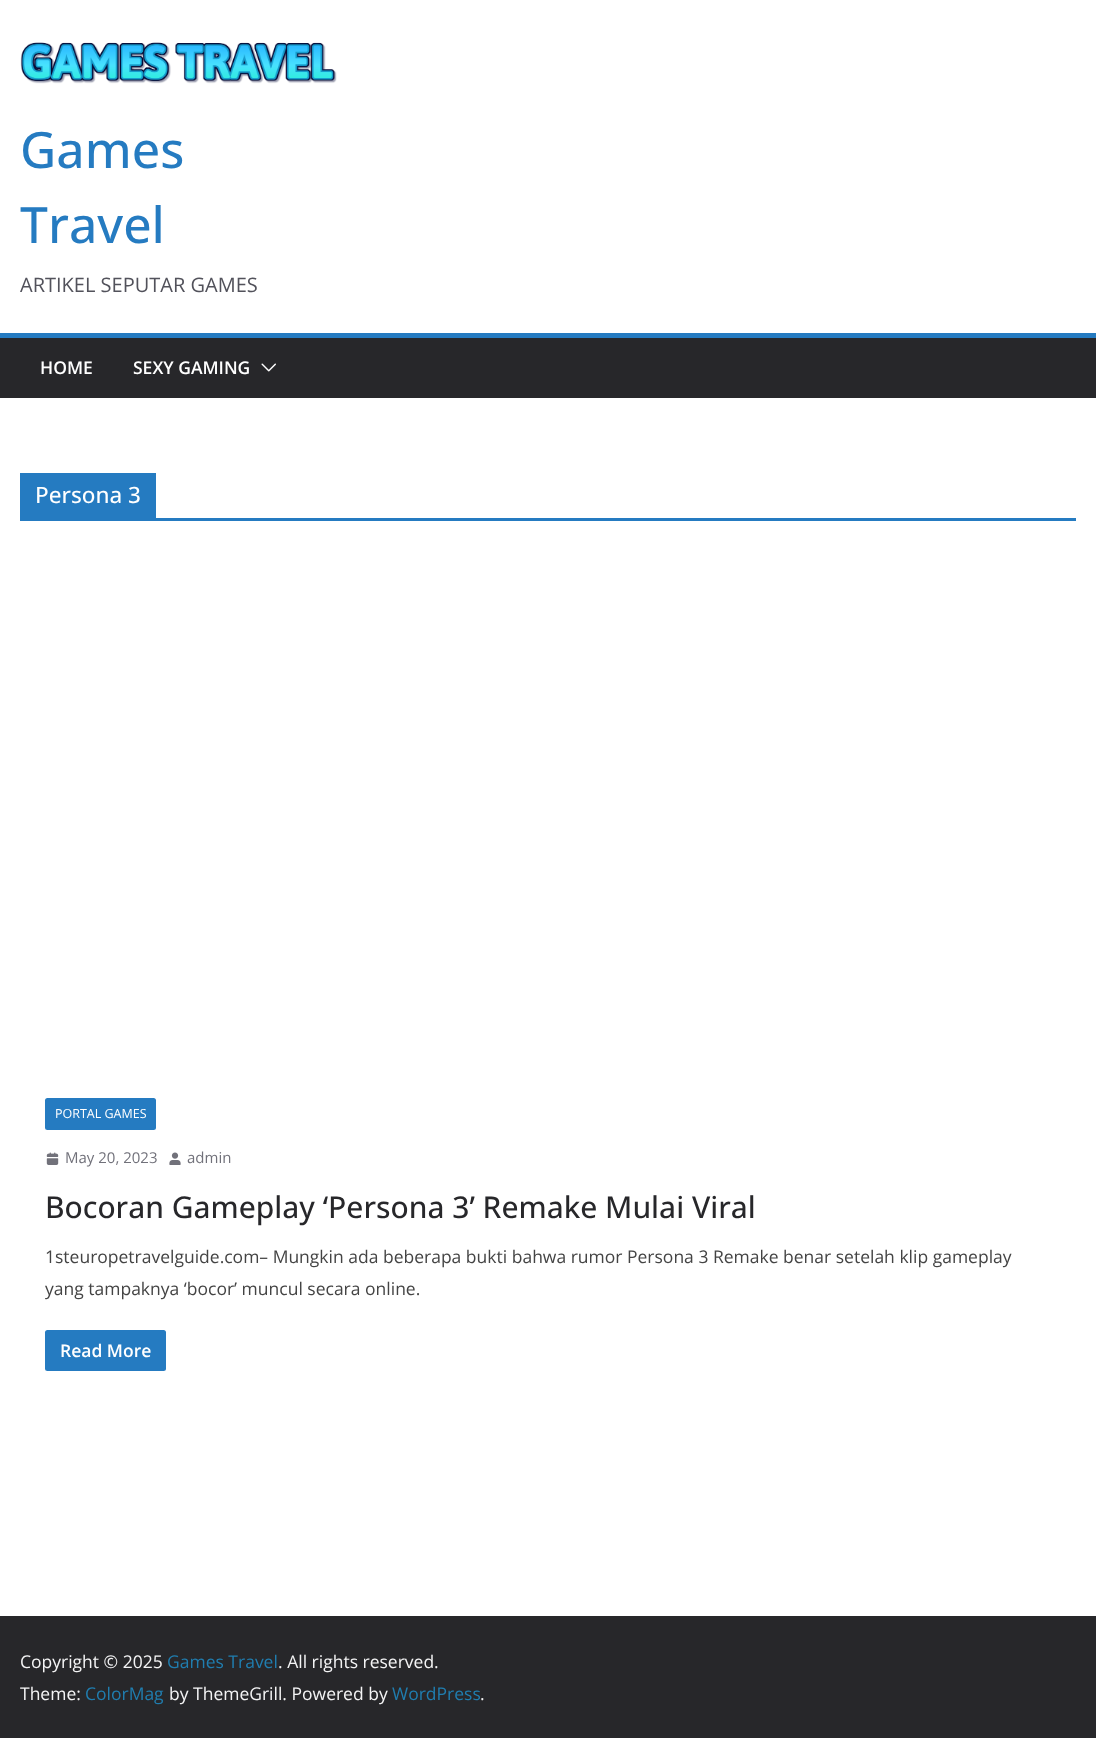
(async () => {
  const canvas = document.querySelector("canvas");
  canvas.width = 1096;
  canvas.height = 1738;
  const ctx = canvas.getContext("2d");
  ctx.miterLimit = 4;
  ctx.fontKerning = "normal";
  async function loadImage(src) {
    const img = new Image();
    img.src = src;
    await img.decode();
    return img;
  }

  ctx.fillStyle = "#ffffff";
  ctx.fillRect(0, 0, 1096, 1738);
  ctx.drawImage(await loadImage("img/1.png"), 20, 42, 317, 42);
  ctx.fillStyle = "#27272a";
  ctx.fillRect(0, 338, 1096, 60);
  ctx.fillStyle = "#257bc1";
  ctx.fillRect(0, 333, 1096, 5);
  ctx.drawImage(await loadImage("img/2.png"), 261, 363, 15, 9);
  ctx.fillRect(20, 518, 1056, 3);
  ctx.fillRect(20, 473, 136, 45);
  ctx.beginPath();
  ctx.roundRect(45, 1098, 111, 32, 2.5);
  ctx.fill();
  ctx.drawImage(await loadImage("img/3.png"), 46, 1152, 13, 13);
  ctx.drawImage(await loadImage("img/4.png"), 169, 1152, 12, 13);
  ctx.beginPath();
  ctx.roundRect(45, 1330, 121, 41, 2.5);
  ctx.fill();
  ctx.fillStyle = "#27272a";
  ctx.fillRect(0, 1616, 1096, 122);
  ctx.font = "500 50px Open Sans";
  ctx.fillStyle = "#257bc1";
  ctx.fillText("Games", 20, 168);
  ctx.fillText("Travel", 20, 243);
  ctx.font = "20px Open Sans";
  ctx.fillStyle = "#52525b";
  ctx.fillText("ARTIKEL SEPUTAR GAMES", 20, 292);
  ctx.font = "600 17.5px Open Sans";
  ctx.fillStyle = "#ffffff";
  ctx.fillText("HOME", 40, 374);
  ctx.fillText("SEXY GAMING", 133, 374);
  ctx.font = "500 22.5px Open Sans";
  ctx.fillText("Persona 3", 35, 503);
  ctx.font = "12.5px Open Sans";
  ctx.fillText("PORTAL GAMES", 55, 1118);
  ctx.font = "15px Open Sans";
  ctx.fillStyle = "#71717a";
  ctx.fillText("May 20, 2023", 65, 1163);
  ctx.fillText("admin", 187, 1163);
  ctx.font = "500 30px Open Sans";
  ctx.fillStyle = "#27272a";
  ctx.fillText("Bocoran Gameplay ‘Persona 3’ Remake Mulai Viral", 45, 1218);
  ctx.font = "17.5px Open Sans";
  ctx.fillStyle = "#444444";
  ctx.fillText("1steuropetravelguide.com– Mungkin ada beberapa bukti bahwa rumor Persona 3 Remake benar setelah klip gameplay", 45, 1263);
  ctx.fillText("yang tampaknya ‘bocor’ muncul secara online.", 45, 1295);
  ctx.font = "600 17.5px Open Sans";
  ctx.fillStyle = "#ffffff";
  ctx.fillText("Read More", 60, 1357);
  ctx.font = "17.5px Open Sans";
  ctx.fillStyle = "#f4f4f5";
  ctx.fillText("Copyright © 2025", 20, 1668);
  ctx.fillStyle = "#207daf";
  ctx.fillText("Games Travel", 167, 1668);
  ctx.fillStyle = "#f4f4f5";
  ctx.fillText(". All rights reserved.", 278, 1668);
  ctx.fillText("Theme:", 20, 1700);
  ctx.fillStyle = "#207daf";
  ctx.fillText("ColorMag", 85, 1700);
  ctx.fillStyle = "#f4f4f5";
  ctx.fillText("by ThemeGrill. Powered by", 169, 1700);
  ctx.fillStyle = "#207daf";
  ctx.fillText("WordPress", 392, 1700);
  ctx.fillStyle = "#f4f4f5";
  ctx.fillText(".", 480, 1700);
})();
